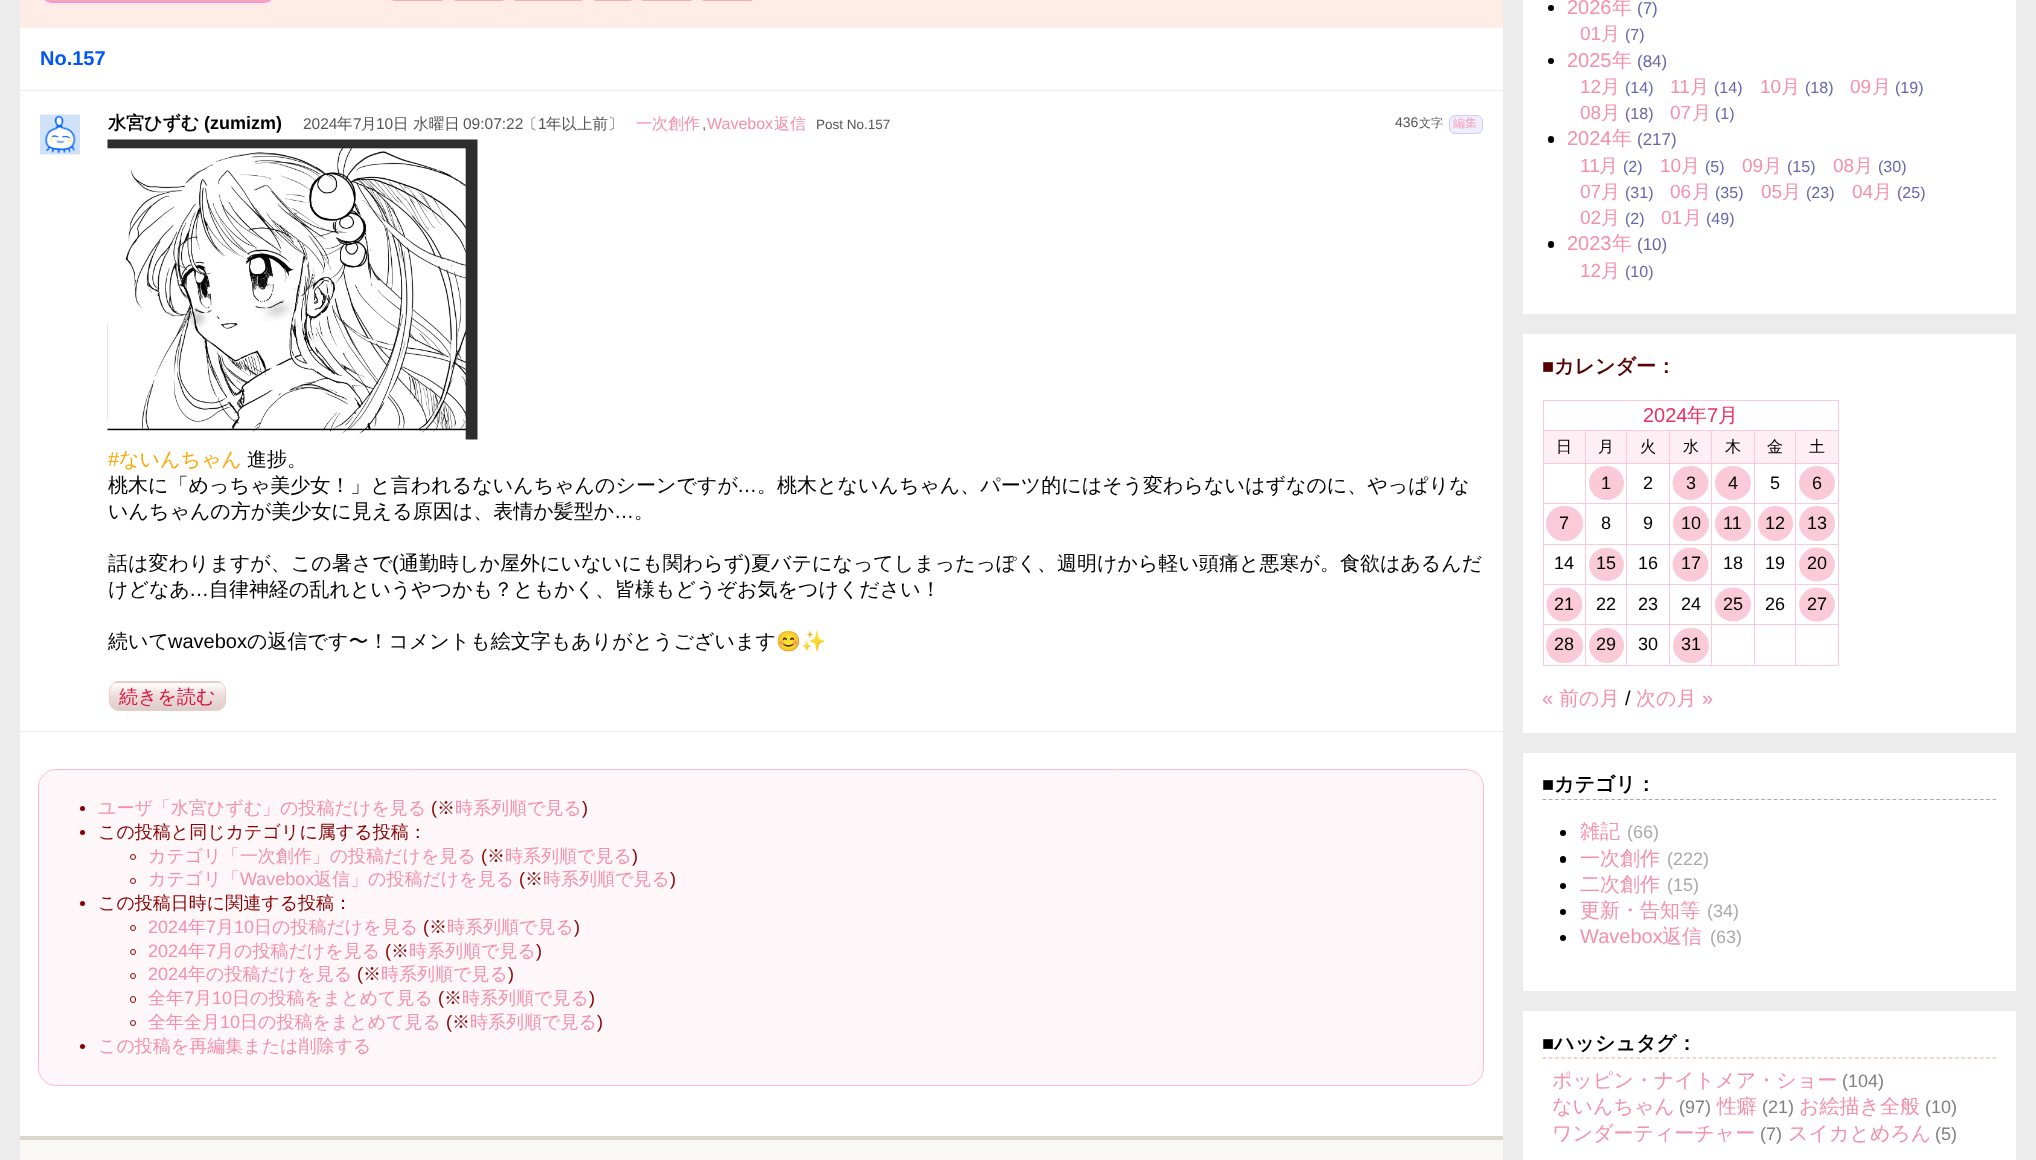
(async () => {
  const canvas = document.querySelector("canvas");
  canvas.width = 2036;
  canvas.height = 1160;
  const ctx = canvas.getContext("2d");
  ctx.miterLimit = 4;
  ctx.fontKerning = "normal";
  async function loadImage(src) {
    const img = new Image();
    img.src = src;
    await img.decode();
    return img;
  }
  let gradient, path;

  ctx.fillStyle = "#ececec";
  ctx.fillRect(0, 0, 2036, 1160);
  ctx.fillStyle = "#ffffff";
  ctx.fillRect(20, 28, 1483, 1108);
  ctx.fillStyle = "#feede6";
  ctx.fillRect(20, 0, 1483, 28);
  ctx.fillStyle = "#f7a4b9";
  ctx.beginPath();
  ctx.roundRect(40.5, -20.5, 235, 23, 19);
  ctx.fill();
  ctx.strokeStyle = "#f58ee8";
  ctx.stroke();
  ctx.beginPath();
  ctx.roundRect(391.5, -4.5, 52, 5, 3.5);
  ctx.strokeStyle = "#ffaaaa";
  ctx.stroke();
  ctx.beginPath();
  ctx.roundRect(453.5, -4.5, 51, 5, 3.5);
  ctx.stroke();
  ctx.beginPath();
  ctx.roundRect(513.5, -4.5, 70, 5, 3.5);
  ctx.stroke();
  ctx.beginPath();
  ctx.roundRect(593.5, -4.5, 39, 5, 3.5);
  ctx.stroke();
  ctx.beginPath();
  ctx.roundRect(640.5, -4.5, 52, 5, 3.5);
  ctx.stroke();
  ctx.beginPath();
  ctx.roundRect(701.5, -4.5, 52, 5, 3.5);
  ctx.stroke();
  ctx.fillStyle = "#ececec";
  ctx.fillRect(20, 90, 1483, 1);
  ctx.fillRect(20, 731, 1483, 1);
  ctx.drawImage(await loadImage("img/1.png"), 40, 114, 40, 41);
  ctx.fillStyle = "#eeeeff";
  ctx.beginPath();
  ctx.roundRect(1449.5, 115.5, 33, 18, 5.5);
  ctx.fill();
  ctx.strokeStyle = "#ccccff";
  ctx.stroke();
  ctx.drawImage(await loadImage("img/2.png"), 107, 139, 371, 301);
  ctx.save();
  ctx.beginPath();
  ctx.roundRect(109, 681, 117, 30, 10);
  ctx.clip();
  gradient = ctx.createLinearGradient(168, 683, 168, 655);
  gradient.addColorStop(0, "#ddcccc");
  gradient.addColorStop(0.55, "#eedddd");
  gradient.addColorStop(1, "#ffffff");
  ctx.fillStyle = gradient;
  ctx.fillRect(109, 681, 117, 2);
  gradient = ctx.createLinearGradient(168, 710, 168, 683);
  gradient.addColorStop(0, "#ddcccc");
  gradient.addColorStop(0.55, "#eedddd");
  gradient.addColorStop(1, "#ffffff");
  ctx.fillStyle = gradient;
  ctx.fillRect(109, 683, 117, 27);
  ctx.restore();
  ctx.beginPath();
  ctx.roundRect(109.5, 681.5, 116, 29, 9.5);
  ctx.strokeStyle = "#eecccc";
  ctx.stroke();
  ctx.fillStyle = "#fef7fa";
  ctx.beginPath();
  ctx.roundRect(38.5, 769.5, 1445, 316, 17.5);
  ctx.fill();
  ctx.strokeStyle = "#fbbbd7";
  ctx.stroke();
  ctx.fillStyle = "#8b0000";
  ctx.beginPath();
  ctx.arc(82.5, 808.5, 2.5, 0, Math.PI * 2);
  ctx.fill();
  ctx.beginPath();
  ctx.arc(82.5, 832.5, 2.5, 0, Math.PI * 2);
  ctx.fill();
  ctx.beginPath();
  ctx.arc(133, 857, 2.5, 0, Math.PI * 2);
  ctx.strokeStyle = "#8b0000";
  ctx.stroke();
  ctx.beginPath();
  ctx.arc(133, 881, 2.5, 0, Math.PI * 2);
  ctx.stroke();
  ctx.beginPath();
  ctx.arc(82.5, 903.5, 2.5, 0, Math.PI * 2);
  ctx.fill();
  ctx.beginPath();
  ctx.arc(133, 928, 2.5, 0, Math.PI * 2);
  ctx.stroke();
  ctx.beginPath();
  ctx.arc(133, 952, 2.5, 0, Math.PI * 2);
  ctx.stroke();
  ctx.beginPath();
  ctx.arc(133, 976, 2.5, 0, Math.PI * 2);
  ctx.stroke();
  ctx.beginPath();
  ctx.roundRect(130.5, 996.5, 5, 6, 2.5);
  ctx.stroke();
  ctx.beginPath();
  ctx.arc(133, 1023, 2.5, 0, Math.PI * 2);
  ctx.stroke();
  ctx.beginPath();
  ctx.arc(82.5, 1046.5, 2.5, 0, Math.PI * 2);
  ctx.fill();
  for (const [x, y, w, h, color] of [
    [20, 1140, 1483, 20, "#faf8f5"],
    [20, 1136, 1483, 4, "#ddd6cc"],
    [1523, 0, 493, 314, "#ffffff"],
  ]) {
    ctx.fillStyle = color;
    ctx.fillRect(x, y, w, h);
  }
  ctx.fillStyle = "#000000";
  ctx.beginPath();
  ctx.arc(1551, 8, 3, 0, Math.PI * 2);
  ctx.fill();
  ctx.beginPath();
  ctx.arc(1551, 61, 3, 0, Math.PI * 2);
  ctx.fill();
  ctx.beginPath();
  ctx.roundRect(1548, 136, 6, 7, 3);
  ctx.fill();
  ctx.beginPath();
  ctx.roundRect(1548, 241, 6, 7, 3);
  ctx.fill();
  for (const [x, y, w, h, color] of [
    [1523, 334, 493, 399, "#ffffff"],
    [1543, 400, 296, 1, "#facad8"],
    [1838, 400, 1, 266, "#facad8"],
    [1543, 665, 296, 1, "#facad8"],
    [1543, 400, 1, 266, "#facad8"],
    [1544, 431, 41, 32, "#feeff4"],
    [1795, 430, 44, 1, "#facad8"],
    [1795, 463, 44, 1, "#facad8"],
    [1795, 503, 44, 1, "#facad8"],
    [1795, 544, 44, 1, "#facad8"],
    [1795, 584, 44, 1, "#facad8"],
    [1795, 624, 44, 1, "#facad8"],
    [1795, 624, 1, 42, "#facad8"],
    [1754, 624, 42, 1, "#facad8"],
    [1795, 584, 1, 41, "#facad8"],
    [1754, 584, 42, 1, "#facad8"],
    [1795, 544, 1, 41, "#facad8"],
    [1754, 544, 42, 1, "#facad8"],
    [1795, 503, 1, 42, "#facad8"],
    [1754, 503, 42, 1, "#facad8"],
    [1795, 463, 1, 41, "#facad8"],
    [1754, 463, 42, 1, "#facad8"],
    [1795, 430, 1, 34, "#facad8"],
    [1754, 430, 42, 1, "#facad8"],
    [1754, 624, 1, 42, "#facad8"],
    [1711, 624, 44, 1, "#facad8"],
    [1754, 584, 1, 41, "#facad8"],
    [1711, 584, 44, 1, "#facad8"],
    [1754, 544, 1, 41, "#facad8"],
    [1711, 544, 44, 1, "#facad8"],
    [1754, 503, 1, 42, "#facad8"],
    [1711, 503, 44, 1, "#facad8"],
    [1754, 463, 1, 41, "#facad8"],
    [1711, 463, 44, 1, "#facad8"],
    [1754, 430, 1, 34, "#facad8"],
    [1711, 430, 44, 1, "#facad8"],
    [1711, 624, 1, 42, "#facad8"],
    [1669, 624, 44, 1, "#facad8"],
    [1711, 584, 1, 41, "#facad8"],
    [1669, 584, 44, 1, "#facad8"],
    [1711, 544, 1, 41, "#facad8"],
    [1669, 544, 44, 1, "#facad8"],
    [1711, 503, 1, 42, "#facad8"],
    [1669, 503, 44, 1, "#facad8"],
    [1711, 463, 1, 41, "#facad8"],
    [1669, 463, 44, 1, "#facad8"],
    [1711, 430, 1, 34, "#facad8"],
    [1669, 430, 44, 1, "#facad8"],
    [1669, 624, 1, 42, "#facad8"],
    [1626, 624, 44, 1, "#facad8"],
    [1669, 584, 1, 41, "#facad8"],
    [1626, 584, 44, 1, "#facad8"],
    [1669, 544, 1, 41, "#facad8"],
    [1626, 544, 44, 1, "#facad8"],
    [1669, 503, 1, 42, "#facad8"],
    [1626, 503, 44, 1, "#facad8"],
    [1669, 463, 1, 41, "#facad8"],
    [1626, 463, 44, 1, "#facad8"],
    [1669, 430, 1, 34, "#facad8"],
    [1626, 430, 44, 1, "#facad8"],
    [1586, 431, 83, 32, "#feeff4"],
    [1626, 624, 1, 42, "#facad8"],
    [1585, 624, 43, 1, "#facad8"],
    [1626, 584, 1, 41, "#facad8"],
    [1585, 584, 43, 1, "#facad8"],
    [1626, 544, 1, 41, "#facad8"],
    [1585, 544, 43, 1, "#facad8"],
    [1626, 503, 1, 42, "#facad8"],
    [1585, 503, 43, 1, "#facad8"],
    [1626, 463, 1, 41, "#facad8"],
    [1585, 463, 43, 1, "#facad8"],
    [1626, 430, 1, 34, "#facad8"],
    [1585, 430, 43, 1, "#facad8"],
    [1585, 624, 1, 42, "#facad8"],
    [1543, 624, 43, 1, "#facad8"],
    [1585, 584, 1, 41, "#facad8"],
    [1543, 584, 43, 1, "#facad8"],
    [1585, 544, 1, 41, "#facad8"],
    [1543, 544, 43, 1, "#facad8"],
    [1585, 503, 1, 42, "#facad8"],
    [1543, 503, 43, 1, "#facad8"],
    [1585, 463, 1, 41, "#facad8"],
    [1543, 463, 43, 1, "#facad8"],
    [1585, 430, 1, 34, "#facad8"],
    [1543, 430, 43, 1, "#facad8"],
    [1670, 431, 41, 32, "#feeff4"],
    [1712, 431, 42, 32, "#feeff4"],
    [1755, 431, 40, 32, "#feeff4"],
    [1796, 431, 42, 32, "#feeff4"],
  ]) {
    ctx.fillStyle = color;
    ctx.fillRect(x, y, w, h);
  }
  ctx.fillStyle = "#facad8";
  ctx.beginPath();
  ctx.roundRect(1589, 466, 35, 34, 17);
  ctx.fill();
  ctx.beginPath();
  ctx.ellipse(1690.5, 483, 18, 17, 0, 0, Math.PI * 2);
  ctx.fill();
  ctx.beginPath();
  ctx.ellipse(1733, 483, 18, 17, 0, 0, Math.PI * 2);
  ctx.fill();
  ctx.beginPath();
  ctx.ellipse(1817, 483, 18, 17, 0, 0, Math.PI * 2);
  ctx.fill();
  ctx.beginPath();
  ctx.roundRect(1546, 506, 37, 35, 17.5);
  ctx.fill();
  ctx.beginPath();
  ctx.roundRect(1673, 506, 36, 35, 17.5);
  ctx.fill();
  ctx.beginPath();
  ctx.roundRect(1715, 506, 36, 35, 17.5);
  ctx.fill();
  ctx.beginPath();
  ctx.arc(1775.5, 523.5, 17.5, 0, Math.PI * 2);
  ctx.fill();
  ctx.beginPath();
  ctx.roundRect(1799, 506, 36, 35, 17.5);
  ctx.fill();
  ctx.beginPath();
  ctx.roundRect(1589, 548, 35, 33, 16.5);
  ctx.fill();
  ctx.beginPath();
  ctx.ellipse(1690.5, 564.5, 18, 17, 0, 0, Math.PI * 2);
  ctx.fill();
  ctx.beginPath();
  ctx.ellipse(1817, 564.5, 18, 17, 0, 0, Math.PI * 2);
  ctx.fill();
  ctx.beginPath();
  ctx.ellipse(1564.5, 604.5, 18, 17, 0, 0, Math.PI * 2);
  ctx.fill();
  ctx.beginPath();
  ctx.ellipse(1733, 604.5, 18, 17, 0, 0, Math.PI * 2);
  ctx.fill();
  ctx.beginPath();
  ctx.ellipse(1817, 604.5, 18, 17, 0, 0, Math.PI * 2);
  ctx.fill();
  ctx.beginPath();
  ctx.roundRect(1546, 628, 37, 35, 17.5);
  ctx.fill();
  ctx.beginPath();
  ctx.arc(1606.5, 645.5, 17.5, 0, Math.PI * 2);
  ctx.fill();
  ctx.beginPath();
  ctx.roundRect(1673, 628, 36, 35, 17.5);
  ctx.fill();
  ctx.fillStyle = "#ffffff";
  ctx.fillRect(1523, 753, 493, 238);
  path = new Path2D("M1542.5 799.5H1996");
  ctx.strokeStyle = "#aaaaaa";
  ctx.lineWidth = 1.2;
  ctx.setLineDash([3.75, 2.5]);
  ctx.stroke(path);
  ctx.fillStyle = "#000000";
  ctx.beginPath();
  ctx.arc(1563, 833, 3, 0, Math.PI * 2);
  ctx.fill();
  ctx.beginPath();
  ctx.roundRect(1560, 856, 6, 7, 3);
  ctx.fill();
  ctx.beginPath();
  ctx.arc(1563, 886, 3, 0, Math.PI * 2);
  ctx.fill();
  ctx.beginPath();
  ctx.arc(1563, 912, 3, 0, Math.PI * 2);
  ctx.fill();
  ctx.beginPath();
  ctx.arc(1563, 938, 3, 0, Math.PI * 2);
  ctx.fill();
  ctx.fillStyle = "#ffffff";
  ctx.fillRect(1523, 1011, 493, 149);
  path = new Path2D("M1542.5 1058H1996");
  ctx.strokeStyle = "#eeaaaa";
  ctx.stroke(path);
  ctx.font = "bold 20px Liberation Sans";
  ctx.fillStyle = "#0055ff";
  ctx.fillText("No.157", 40, 65);
  ctx.font = "bold 18px WenQuanYi Zen Hei";
  ctx.fillStyle = "#000000";
  ctx.fillText("水宮ひずむ", 108, 129);
  ctx.font = "bold 18px Liberation Sans";
  ctx.fillText("(zumizm)", 204, 129);
  ctx.font = "15.5px Liberation Sans";
  ctx.fillStyle = "#555555";
  ctx.fillText("2024", 303, 129);
  ctx.font = "500 15.5px WenQuanYi Zen Hei";
  ctx.fillText("年", 337, 129);
  ctx.font = "15.5px Liberation Sans";
  ctx.fillText("7", 353, 129);
  ctx.font = "500 15.5px WenQuanYi Zen Hei";
  ctx.fillText("月", 361, 129);
  ctx.font = "15.5px Liberation Sans";
  ctx.fillText("10", 376, 129);
  ctx.font = "500 15.5px WenQuanYi Zen Hei";
  ctx.fillText("日 水曜日", 393, 129);
  ctx.font = "15.5px Liberation Sans";
  ctx.fillText("09:07:22", 463, 129);
  ctx.font = "500 15.5px WenQuanYi Zen Hei";
  ctx.fillText("〔", 522, 129);
  ctx.font = "15.5px Liberation Sans";
  ctx.fillText("1", 538, 129);
  ctx.font = "500 15.5px WenQuanYi Zen Hei";
  ctx.fillText("年以上前〕", 546, 129);
  ctx.font = "500 16px WenQuanYi Zen Hei";
  ctx.fillStyle = "#f590ac";
  ctx.fillText("一次創作", 636, 129);
  ctx.font = "16px Liberation Sans";
  ctx.fillStyle = "#808080";
  ctx.fillText(",", 702, 129);
  ctx.fillStyle = "#f590ac";
  ctx.fillText("Wavebox", 707, 129);
  ctx.font = "500 16px WenQuanYi Zen Hei";
  ctx.fillText("返信", 774, 129);
  ctx.font = "13.5px Liberation Sans";
  ctx.fillStyle = "#555555";
  ctx.fillText("Post No.157", 816, 129);
  ctx.font = "14px Liberation Sans";
  ctx.fillText("436", 1395, 127);
  ctx.font = "500 12px WenQuanYi Zen Hei";
  ctx.fillText("文字", 1419, 127);
  ctx.fillStyle = "#f7a4b9";
  ctx.fillText("編集", 1453, 127);
  ctx.font = "20px Liberation Sans";
  ctx.fillStyle = "#ffa500";
  ctx.fillText("#", 108, 466);
  ctx.font = "500 20px WenQuanYi Zen Hei";
  ctx.fillText("ないんちゃん", 119, 466);
  ctx.fillStyle = "#000000";
  ctx.fillText("進捗。", 247, 466);
  ctx.fillText("桃木に「めっちゃ美少女！」と言われるないんちゃんのシーンですが", 108, 492);
  ctx.font = "20px Liberation Sans";
  ctx.fillText("…", 737, 492);
  ctx.font = "500 20px WenQuanYi Zen Hei";
  ctx.fillText("。桃木とないんちゃん、パーツ的にはそう変わらないはずなのに、やっぱりな", 757, 492);
  ctx.fillText("いんちゃんの方が美少女に見える原因は、表情か髪型か", 108, 518);
  ctx.font = "20px Liberation Sans";
  ctx.fillText("…", 614, 518);
  ctx.font = "500 20px WenQuanYi Zen Hei";
  ctx.fillText("。", 634, 518);
  ctx.fillText("話は変わりますが、この暑さで", 108, 570);
  ctx.font = "20px Liberation Sans";
  ctx.fillText("(", 392, 570);
  ctx.font = "500 20px WenQuanYi Zen Hei";
  ctx.fillText("通勤時しか屋外にいないにも関わらず", 399, 570);
  ctx.font = "20px Liberation Sans";
  ctx.fillText(")", 744, 570);
  ctx.font = "500 20px WenQuanYi Zen Hei";
  ctx.fillText("夏バテになってしまったっぽく、週明けから軽い頭痛と悪寒が。食欲はあるんだ", 751, 570);
  ctx.fillText("けどなあ", 108, 596);
  ctx.font = "20px Liberation Sans";
  ctx.fillText("…", 189, 596);
  ctx.font = "500 20px WenQuanYi Zen Hei";
  ctx.fillText("自律神経の乱れというやつかも？ともかく、皆様もどうぞお気をつけください！", 209, 596);
  ctx.fillText("続いて", 108, 648);
  ctx.font = "20px Liberation Sans";
  ctx.fillText("wavebox", 168, 648);
  ctx.font = "500 20px WenQuanYi Zen Hei";
  ctx.fillText("の返信です〜！コメントも絵文字もありがとうございます", 247, 648);
  ctx.font = "20px Noto Color Emoji";
  ctx.fillText("😊✨", 776, 648);
  ctx.font = "500 19px WenQuanYi Zen Hei";
  ctx.fillStyle = "#dc143c";
  ctx.fillText("続きを読む", 119, 703);
  ctx.font = "500 18px WenQuanYi Zen Hei";
  ctx.fillStyle = "#f590ac";
  ctx.fillText("ユーザ「水宮ひずむ」の投稿だけを見る", 98, 814);
  ctx.font = "18px Liberation Sans";
  ctx.fillStyle = "#8b0000";
  ctx.fillText("(", 431, 814);
  ctx.font = "500 18px WenQuanYi Zen Hei";
  ctx.fillText("※", 437, 814);
  ctx.fillStyle = "#f590ac";
  ctx.fillText("時系列順で見る", 455, 814);
  ctx.font = "18px Liberation Sans";
  ctx.fillStyle = "#8b0000";
  ctx.fillText(")", 582, 814);
  ctx.font = "500 18px WenQuanYi Zen Hei";
  ctx.fillText("この投稿と同じカテゴリに属する投稿：", 98, 838);
  ctx.fillStyle = "#f590ac";
  ctx.fillText("カテゴリ「一次創作」の投稿だけを見る", 148, 862);
  ctx.font = "18px Liberation Sans";
  ctx.fillStyle = "#8b0000";
  ctx.fillText("(", 481, 862);
  ctx.font = "500 18px WenQuanYi Zen Hei";
  ctx.fillText("※", 487, 862);
  ctx.fillStyle = "#f590ac";
  ctx.fillText("時系列順で見る", 505, 862);
  ctx.font = "18px Liberation Sans";
  ctx.fillStyle = "#8b0000";
  ctx.fillText(")", 632, 862);
  ctx.font = "500 18px WenQuanYi Zen Hei";
  ctx.fillStyle = "#f590ac";
  ctx.fillText("カテゴリ「", 148, 885);
  ctx.font = "18px Liberation Sans";
  ctx.fillText("Wavebox", 240, 885);
  ctx.font = "500 18px WenQuanYi Zen Hei";
  ctx.fillText("返信」の投稿だけを見る", 314, 885);
  ctx.font = "18px Liberation Sans";
  ctx.fillStyle = "#8b0000";
  ctx.fillText("(", 519, 885);
  ctx.font = "500 18px WenQuanYi Zen Hei";
  ctx.fillText("※", 525, 885);
  ctx.fillStyle = "#f590ac";
  ctx.fillText("時系列順で見る", 543, 885);
  ctx.font = "18px Liberation Sans";
  ctx.fillStyle = "#8b0000";
  ctx.fillText(")", 670, 885);
  ctx.font = "500 18px WenQuanYi Zen Hei";
  ctx.fillText("この投稿日時に関連する投稿：", 98, 909);
  ctx.font = "18px Liberation Sans";
  ctx.fillStyle = "#f590ac";
  ctx.fillText("2024", 148, 933);
  ctx.font = "500 18px WenQuanYi Zen Hei";
  ctx.fillText("年", 188, 933);
  ctx.font = "18px Liberation Sans";
  ctx.fillText("7", 206, 933);
  ctx.font = "500 18px WenQuanYi Zen Hei";
  ctx.fillText("月", 216, 933);
  ctx.font = "18px Liberation Sans";
  ctx.fillText("10", 234, 933);
  ctx.font = "500 18px WenQuanYi Zen Hei";
  ctx.fillText("日の投稿だけを見る", 254, 933);
  ctx.font = "18px Liberation Sans";
  ctx.fillStyle = "#8b0000";
  ctx.fillText("(", 423, 933);
  ctx.font = "500 18px WenQuanYi Zen Hei";
  ctx.fillText("※", 429, 933);
  ctx.fillStyle = "#f590ac";
  ctx.fillText("時系列順で見る", 447, 933);
  ctx.font = "18px Liberation Sans";
  ctx.fillStyle = "#8b0000";
  ctx.fillText(")", 574, 933);
  ctx.fillStyle = "#f590ac";
  ctx.fillText("2024", 148, 957);
  ctx.font = "500 18px WenQuanYi Zen Hei";
  ctx.fillText("年", 188, 957);
  ctx.font = "18px Liberation Sans";
  ctx.fillText("7", 206, 957);
  ctx.font = "500 18px WenQuanYi Zen Hei";
  ctx.fillText("月の投稿だけを見る", 216, 957);
  ctx.font = "18px Liberation Sans";
  ctx.fillStyle = "#8b0000";
  ctx.fillText("(", 385, 957);
  ctx.font = "500 18px WenQuanYi Zen Hei";
  ctx.fillText("※", 391, 957);
  ctx.fillStyle = "#f590ac";
  ctx.fillText("時系列順で見る", 409, 957);
  ctx.font = "18px Liberation Sans";
  ctx.fillStyle = "#8b0000";
  ctx.fillText(")", 536, 957);
  ctx.fillStyle = "#f590ac";
  ctx.fillText("2024", 148, 980);
  ctx.font = "500 18px WenQuanYi Zen Hei";
  ctx.fillText("年の投稿だけを見る", 188, 980);
  ctx.font = "18px Liberation Sans";
  ctx.fillStyle = "#8b0000";
  ctx.fillText("(", 357, 980);
  ctx.font = "500 18px WenQuanYi Zen Hei";
  ctx.fillText("※", 363, 980);
  ctx.fillStyle = "#f590ac";
  ctx.fillText("時系列順で見る", 381, 980);
  ctx.font = "18px Liberation Sans";
  ctx.fillStyle = "#8b0000";
  ctx.fillText(")", 508, 980);
  ctx.font = "500 18px WenQuanYi Zen Hei";
  ctx.fillStyle = "#f590ac";
  ctx.fillText("全年", 148, 1004);
  ctx.font = "18px Liberation Sans";
  ctx.fillText("7", 184, 1004);
  ctx.font = "500 18px WenQuanYi Zen Hei";
  ctx.fillText("月", 194, 1004);
  ctx.font = "18px Liberation Sans";
  ctx.fillText("10", 212, 1004);
  ctx.font = "500 18px WenQuanYi Zen Hei";
  ctx.fillText("日の投稿をまとめて見る", 232, 1004);
  ctx.font = "18px Liberation Sans";
  ctx.fillStyle = "#8b0000";
  ctx.fillText("(", 438, 1004);
  ctx.font = "500 18px WenQuanYi Zen Hei";
  ctx.fillText("※", 444, 1004);
  ctx.fillStyle = "#f590ac";
  ctx.fillText("時系列順で見る", 462, 1004);
  ctx.font = "18px Liberation Sans";
  ctx.fillStyle = "#8b0000";
  ctx.fillText(")", 589, 1004);
  ctx.font = "500 18px WenQuanYi Zen Hei";
  ctx.fillStyle = "#f590ac";
  ctx.fillText("全年全月", 148, 1028);
  ctx.font = "18px Liberation Sans";
  ctx.fillText("10", 220, 1028);
  ctx.font = "500 18px WenQuanYi Zen Hei";
  ctx.fillText("日の投稿をまとめて見る", 240, 1028);
  ctx.font = "18px Liberation Sans";
  ctx.fillStyle = "#8b0000";
  ctx.fillText("(", 446, 1028);
  ctx.font = "500 18px WenQuanYi Zen Hei";
  ctx.fillText("※", 452, 1028);
  ctx.fillStyle = "#f590ac";
  ctx.fillText("時系列順で見る", 470, 1028);
  ctx.font = "18px Liberation Sans";
  ctx.fillStyle = "#8b0000";
  ctx.fillText(")", 597, 1028);
  ctx.font = "500 18px WenQuanYi Zen Hei";
  ctx.fillStyle = "#f590ac";
  ctx.fillText("この投稿を再編集または削除する", 98, 1052);
  ctx.font = "20px Liberation Sans";
  ctx.fillText("2026", 1567, 14);
  ctx.font = "500 20px WenQuanYi Zen Hei";
  ctx.fillText("年", 1612, 14);
  ctx.font = "17px Liberation Sans";
  ctx.fillStyle = "#6666aa";
  ctx.fillText("(7)", 1637, 14);
  ctx.font = "19px Liberation Sans";
  ctx.fillStyle = "#f590ac";
  ctx.fillText("01", 1580, 40);
  ctx.font = "500 19px WenQuanYi Zen Hei";
  ctx.fillText("月", 1601, 40);
  ctx.font = "16px Liberation Sans";
  ctx.fillStyle = "#6666aa";
  ctx.fillText("(7)", 1625, 40);
  ctx.font = "20px Liberation Sans";
  ctx.fillStyle = "#f590ac";
  ctx.fillText("2025", 1567, 67);
  ctx.font = "500 20px WenQuanYi Zen Hei";
  ctx.fillText("年", 1612, 67);
  ctx.font = "17px Liberation Sans";
  ctx.fillStyle = "#6666aa";
  ctx.fillText("(84)", 1637, 67);
  ctx.font = "19px Liberation Sans";
  ctx.fillStyle = "#f590ac";
  ctx.fillText("12", 1580, 93);
  ctx.font = "500 19px WenQuanYi Zen Hei";
  ctx.fillText("月", 1601, 93);
  ctx.font = "16px Liberation Sans";
  ctx.fillStyle = "#6666aa";
  ctx.fillText("(14)", 1625, 93);
  ctx.font = "19px Liberation Sans";
  ctx.fillStyle = "#f590ac";
  ctx.fillText("11", 1670, 93);
  ctx.font = "500 19px WenQuanYi Zen Hei";
  ctx.fillText("月", 1690, 93);
  ctx.font = "16px Liberation Sans";
  ctx.fillStyle = "#6666aa";
  ctx.fillText("(14)", 1714, 93);
  ctx.font = "19px Liberation Sans";
  ctx.fillStyle = "#f590ac";
  ctx.fillText("10", 1760, 93);
  ctx.font = "500 19px WenQuanYi Zen Hei";
  ctx.fillText("月", 1781, 93);
  ctx.font = "16px Liberation Sans";
  ctx.fillStyle = "#6666aa";
  ctx.fillText("(18)", 1805, 93);
  ctx.font = "19px Liberation Sans";
  ctx.fillStyle = "#f590ac";
  ctx.fillText("09", 1850, 93);
  ctx.font = "500 19px WenQuanYi Zen Hei";
  ctx.fillText("月", 1872, 93);
  ctx.font = "16px Liberation Sans";
  ctx.fillStyle = "#6666aa";
  ctx.fillText("(19)", 1895, 93);
  ctx.font = "19px Liberation Sans";
  ctx.fillStyle = "#f590ac";
  ctx.fillText("08", 1580, 119);
  ctx.font = "500 19px WenQuanYi Zen Hei";
  ctx.fillText("月", 1601, 119);
  ctx.font = "16px Liberation Sans";
  ctx.fillStyle = "#6666aa";
  ctx.fillText("(18)", 1625, 119);
  ctx.font = "19px Liberation Sans";
  ctx.fillStyle = "#f590ac";
  ctx.fillText("07", 1670, 119);
  ctx.font = "500 19px WenQuanYi Zen Hei";
  ctx.fillText("月", 1692, 119);
  ctx.font = "16px Liberation Sans";
  ctx.fillStyle = "#6666aa";
  ctx.fillText("(1)", 1715, 119);
  ctx.font = "20px Liberation Sans";
  ctx.fillStyle = "#f590ac";
  ctx.fillText("2024", 1567, 145);
  ctx.font = "500 20px WenQuanYi Zen Hei";
  ctx.fillText("年", 1612, 145);
  ctx.font = "17px Liberation Sans";
  ctx.fillStyle = "#6666aa";
  ctx.fillText("(217)", 1637, 145);
  ctx.font = "19px Liberation Sans";
  ctx.fillStyle = "#f590ac";
  ctx.fillText("11", 1580, 172);
  ctx.font = "500 19px WenQuanYi Zen Hei";
  ctx.fillText("月", 1599, 172);
  ctx.font = "16px Liberation Sans";
  ctx.fillStyle = "#6666aa";
  ctx.fillText("(2)", 1623, 172);
  ctx.font = "19px Liberation Sans";
  ctx.fillStyle = "#f590ac";
  ctx.fillText("10", 1660, 172);
  ctx.font = "500 19px WenQuanYi Zen Hei";
  ctx.fillText("月", 1681, 172);
  ctx.font = "16px Liberation Sans";
  ctx.fillStyle = "#6666aa";
  ctx.fillText("(5)", 1705, 172);
  ctx.font = "19px Liberation Sans";
  ctx.fillStyle = "#f590ac";
  ctx.fillText("09", 1742, 172);
  ctx.font = "500 19px WenQuanYi Zen Hei";
  ctx.fillText("月", 1763, 172);
  ctx.font = "16px Liberation Sans";
  ctx.fillStyle = "#6666aa";
  ctx.fillText("(15)", 1787, 172);
  ctx.font = "19px Liberation Sans";
  ctx.fillStyle = "#f590ac";
  ctx.fillText("08", 1833, 172);
  ctx.font = "500 19px WenQuanYi Zen Hei";
  ctx.fillText("月", 1854, 172);
  ctx.font = "16px Liberation Sans";
  ctx.fillStyle = "#6666aa";
  ctx.fillText("(30)", 1878, 172);
  ctx.font = "19px Liberation Sans";
  ctx.fillStyle = "#f590ac";
  ctx.fillText("07", 1580, 198);
  ctx.font = "500 19px WenQuanYi Zen Hei";
  ctx.fillText("月", 1601, 198);
  ctx.font = "16px Liberation Sans";
  ctx.fillStyle = "#6666aa";
  ctx.fillText("(31)", 1625, 198);
  ctx.font = "19px Liberation Sans";
  ctx.fillStyle = "#f590ac";
  ctx.fillText("06", 1670, 198);
  ctx.font = "500 19px WenQuanYi Zen Hei";
  ctx.fillText("月", 1692, 198);
  ctx.font = "16px Liberation Sans";
  ctx.fillStyle = "#6666aa";
  ctx.fillText("(35)", 1715, 198);
  ctx.font = "19px Liberation Sans";
  ctx.fillStyle = "#f590ac";
  ctx.fillText("05", 1761, 198);
  ctx.font = "500 19px WenQuanYi Zen Hei";
  ctx.fillText("月", 1782, 198);
  ctx.font = "16px Liberation Sans";
  ctx.fillStyle = "#6666aa";
  ctx.fillText("(23)", 1806, 198);
  ctx.font = "19px Liberation Sans";
  ctx.fillStyle = "#f590ac";
  ctx.fillText("04", 1852, 198);
  ctx.font = "500 19px WenQuanYi Zen Hei";
  ctx.fillText("月", 1873, 198);
  ctx.font = "16px Liberation Sans";
  ctx.fillStyle = "#6666aa";
  ctx.fillText("(25)", 1897, 198);
  ctx.font = "19px Liberation Sans";
  ctx.fillStyle = "#f590ac";
  ctx.fillText("02", 1580, 224);
  ctx.font = "500 19px WenQuanYi Zen Hei";
  ctx.fillText("月", 1601, 224);
  ctx.font = "16px Liberation Sans";
  ctx.fillStyle = "#6666aa";
  ctx.fillText("(2)", 1625, 224);
  ctx.font = "19px Liberation Sans";
  ctx.fillStyle = "#f590ac";
  ctx.fillText("01", 1661, 224);
  ctx.font = "500 19px WenQuanYi Zen Hei";
  ctx.fillText("月", 1683, 224);
  ctx.font = "16px Liberation Sans";
  ctx.fillStyle = "#6666aa";
  ctx.fillText("(49)", 1706, 224);
  ctx.font = "20px Liberation Sans";
  ctx.fillStyle = "#f590ac";
  ctx.fillText("2023", 1567, 250);
  ctx.font = "500 20px WenQuanYi Zen Hei";
  ctx.fillText("年", 1612, 250);
  ctx.font = "17px Liberation Sans";
  ctx.fillStyle = "#6666aa";
  ctx.fillText("(10)", 1637, 250);
  ctx.font = "19px Liberation Sans";
  ctx.fillStyle = "#f590ac";
  ctx.fillText("12", 1580, 277);
  ctx.font = "500 19px WenQuanYi Zen Hei";
  ctx.fillText("月", 1601, 277);
  ctx.font = "16px Liberation Sans";
  ctx.fillStyle = "#6666aa";
  ctx.fillText("(10)", 1625, 277);
  ctx.font = "bold 20px Liberation Sans";
  ctx.fillStyle = "#550000";
  ctx.fillText("■", 1542, 373);
  ctx.font = "bold 20px WenQuanYi Zen Hei";
  ctx.fillText("カレンダー：", 1554, 373);
  ctx.font = "20px Liberation Sans";
  ctx.fillStyle = "#ed2e62";
  ctx.fillText("2024", 1643, 422);
  ctx.font = "500 20px WenQuanYi Zen Hei";
  ctx.fillText("年", 1687, 422);
  ctx.font = "20px Liberation Sans";
  ctx.fillText("7", 1707, 422);
  ctx.font = "500 20px WenQuanYi Zen Hei";
  ctx.fillText("月", 1718, 422);
  ctx.font = "500 16px WenQuanYi Zen Hei";
  ctx.fillStyle = "#000000";
  for (const [text, x, y] of [
    ["日", 1556, 452],
    ["月", 1598, 452],
    ["火", 1640, 452],
    ["水", 1683, 452],
    ["木", 1725, 452],
    ["金", 1767, 452],
    ["土", 1809, 452],
  ]) {
    ctx.fillText(text, x, y);
  }
  ctx.font = "18px Liberation Sans";
  for (const [text, x, y] of [
    ["1", 1601, 489],
    ["2", 1643, 489],
    ["3", 1686, 489],
    ["4", 1728, 489],
    ["5", 1770, 489],
    ["6", 1812, 489],
    ["7", 1559, 529],
    ["8", 1601, 529],
    ["9", 1643, 529],
    ["10", 1681, 529],
    ["11", 1723, 529],
    ["12", 1765, 529],
    ["13", 1807, 529],
    ["14", 1554, 569],
    ["15", 1596, 569],
    ["16", 1638, 569],
    ["17", 1681, 569],
    ["18", 1723, 569],
    ["19", 1765, 569],
    ["20", 1807, 569],
    ["21", 1554, 610],
    ["22", 1596, 610],
    ["23", 1638, 610],
    ["24", 1681, 610],
    ["25", 1723, 610],
    ["26", 1765, 610],
    ["27", 1807, 610],
    ["28", 1554, 650],
    ["29", 1596, 650],
    ["30", 1638, 650],
    ["31", 1681, 650],
  ]) {
    ctx.fillText(text, x, y);
  }
  ctx.font = "20px Liberation Sans";
  ctx.fillStyle = "#f590ac";
  ctx.fillText("«", 1542, 705);
  ctx.font = "500 20px WenQuanYi Zen Hei";
  ctx.fillText("前の月", 1559, 705);
  ctx.font = "20px Liberation Sans";
  ctx.fillStyle = "#000000";
  ctx.fillText("/", 1625, 705);
  ctx.font = "500 20px WenQuanYi Zen Hei";
  ctx.fillStyle = "#f590ac";
  ctx.fillText("次の月", 1636, 705);
  ctx.font = "20px Liberation Sans";
  ctx.fillText("»", 1702, 705);
  ctx.font = "bold 20px Liberation Sans";
  ctx.fillStyle = "#000000";
  ctx.fillText("■", 1542, 791);
  ctx.font = "bold 20px WenQuanYi Zen Hei";
  ctx.fillText("カテゴリ：", 1554, 791);
  ctx.font = "500 20px WenQuanYi Zen Hei";
  ctx.fillStyle = "#f590ac";
  ctx.fillText("雑記", 1580, 838);
  ctx.font = "18px Liberation Sans";
  ctx.fillStyle = "#aaaaaa";
  ctx.fillText("(66)", 1627, 838);
  ctx.font = "500 20px WenQuanYi Zen Hei";
  ctx.fillStyle = "#f590ac";
  ctx.fillText("一次創作", 1580, 865);
  ctx.font = "18px Liberation Sans";
  ctx.fillStyle = "#aaaaaa";
  ctx.fillText("(222)", 1667, 865);
  ctx.font = "500 20px WenQuanYi Zen Hei";
  ctx.fillStyle = "#f590ac";
  ctx.fillText("二次創作", 1580, 891);
  ctx.font = "18px Liberation Sans";
  ctx.fillStyle = "#aaaaaa";
  ctx.fillText("(15)", 1667, 891);
  ctx.font = "500 20px WenQuanYi Zen Hei";
  ctx.fillStyle = "#f590ac";
  ctx.fillText("更新・告知等", 1580, 917);
  ctx.font = "18px Liberation Sans";
  ctx.fillStyle = "#aaaaaa";
  ctx.fillText("(34)", 1707, 917);
  ctx.font = "20px Liberation Sans";
  ctx.fillStyle = "#f590ac";
  ctx.fillText("Wavebox", 1580, 943);
  ctx.font = "500 20px WenQuanYi Zen Hei";
  ctx.fillText("返信", 1662, 943);
  ctx.font = "18px Liberation Sans";
  ctx.fillStyle = "#aaaaaa";
  ctx.fillText("(63)", 1710, 943);
  ctx.font = "bold 20px Liberation Sans";
  ctx.fillStyle = "#000000";
  ctx.fillText("■", 1542, 1050);
  ctx.font = "bold 20px WenQuanYi Zen Hei";
  ctx.fillText("ハッシュタグ：", 1554, 1050);
  ctx.font = "500 20px WenQuanYi Zen Hei";
  ctx.fillStyle = "#f590ac";
  ctx.fillText("ポッピン・ナイトメア・ショー", 1552, 1087);
  ctx.font = "18px Liberation Sans";
  ctx.fillStyle = "#808080";
  ctx.fillText("(104)", 1842, 1087);
  ctx.font = "500 20px WenQuanYi Zen Hei";
  ctx.fillStyle = "#f590ac";
  ctx.fillText("ないんちゃん", 1552, 1113);
  ctx.font = "18px Liberation Sans";
  ctx.fillStyle = "#808080";
  ctx.fillText("(97)", 1679, 1113);
  ctx.font = "500 20px WenQuanYi Zen Hei";
  ctx.fillStyle = "#f590ac";
  ctx.fillText("性癖", 1717, 1113);
  ctx.font = "18px Liberation Sans";
  ctx.fillStyle = "#808080";
  ctx.fillText("(21)", 1762, 1113);
  ctx.font = "500 20px WenQuanYi Zen Hei";
  ctx.fillStyle = "#f590ac";
  ctx.fillText("お絵描き全般", 1799, 1113);
  ctx.font = "18px Liberation Sans";
  ctx.fillStyle = "#808080";
  ctx.fillText("(10)", 1925, 1113);
  ctx.font = "500 20px WenQuanYi Zen Hei";
  ctx.fillStyle = "#f590ac";
  ctx.fillText("ワンダーティーチャー", 1552, 1140);
  ctx.font = "18px Liberation Sans";
  ctx.fillStyle = "#808080";
  ctx.fillText("(7)", 1760, 1140);
  ctx.font = "500 20px WenQuanYi Zen Hei";
  ctx.fillStyle = "#f590ac";
  ctx.fillText("スイカとめろん", 1788, 1140);
  ctx.font = "18px Liberation Sans";
  ctx.fillStyle = "#808080";
  ctx.fillText("(5)", 1935, 1140);
})();
